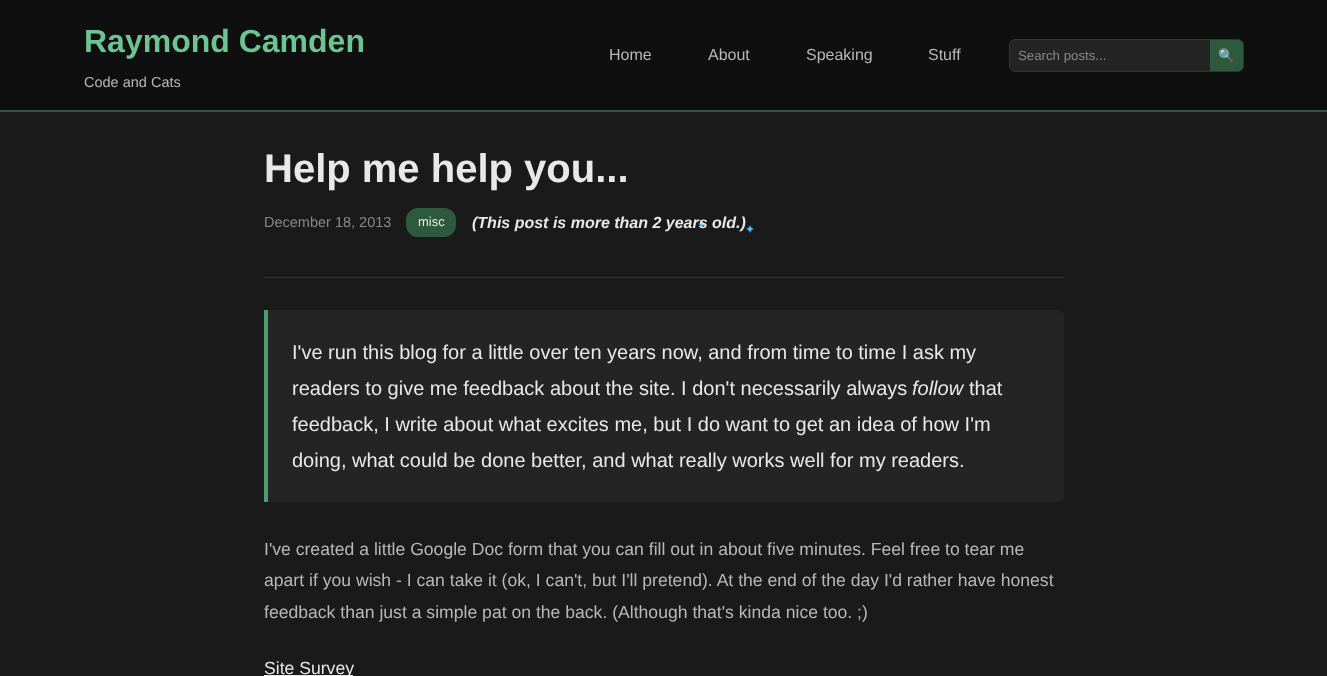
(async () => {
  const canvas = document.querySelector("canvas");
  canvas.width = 1327;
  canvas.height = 676;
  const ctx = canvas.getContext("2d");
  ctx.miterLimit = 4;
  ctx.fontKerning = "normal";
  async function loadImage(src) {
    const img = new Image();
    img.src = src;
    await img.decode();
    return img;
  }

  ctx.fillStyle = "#1a1a1a";
  ctx.fillRect(0, 0, 1327, 676);
  ctx.fillStyle = "#0f0f0f";
  ctx.fillRect(0, 0, 1327, 110);
  ctx.fillStyle = "#2d5a3d";
  ctx.fillRect(0, 110, 1327, 2);
  ctx.fillStyle = "#242424";
  ctx.beginPath();
  ctx.roundRect(1009.5, 39.5, 234, 32, 5.5);
  ctx.fill();
  ctx.strokeStyle = "#333333";
  ctx.stroke();
  ctx.fillStyle = "#2d5a3d";
  ctx.beginPath();
  ctx.roundRect(1210, 40, 33, 31, [0, 5, 5, 0]);
  ctx.fill();
  ctx.fillStyle = "#333333";
  ctx.fillRect(264, 277, 800, 1);
  ctx.fillStyle = "#2d5a3d";
  ctx.beginPath();
  ctx.roundRect(406, 208, 50, 29, 12);
  ctx.fill();
  ctx.drawImage(await loadImage("img/1.png"), 698, 220, 8, 8);
  ctx.drawImage(await loadImage("img/1.png"), 746, 225, 8, 8);
  ctx.fillStyle = "#242424";
  ctx.beginPath();
  ctx.roundRect(264, 310, 800, 192, [0, 6, 6, 0]);
  ctx.fill();
  ctx.fillStyle = "#4a9d6f";
  ctx.fillRect(264, 310, 4, 192);
  ctx.fillStyle = "#e8e8e8";
  ctx.fillRect(264, 675, 89, 1);
  ctx.font = "bold 32px Liberation Sans";
  ctx.fillStyle = "#6bc491";
  ctx.fillText("Raymond Camden", 84, 52);
  ctx.font = "14.5px Liberation Sans";
  ctx.fillStyle = "#b8b8b8";
  ctx.fillText("Code and Cats", 84, 87);
  ctx.font = "16px Liberation Sans";
  for (const [text, x, y] of [
    ["Home", 609, 60],
    ["About", 708, 60],
    ["Speaking", 806, 60],
    ["Stuff", 928, 60],
  ]) {
    ctx.fillText(text, x, y);
  }
  ctx.font = "13.25px Liberation Sans";
  ctx.fillStyle = "#888888";
  ctx.fillText("Search posts...", 1018, 60);
  ctx.font = "13.25px Noto Color Emoji";
  ctx.fillStyle = "#e8e8e8";
  ctx.fillText("🔍", 1218, 60);
  ctx.font = "bold 40px Liberation Sans";
  ctx.fillText("Help me help you...", 264, 182);
  ctx.font = "14.5px Liberation Sans";
  ctx.fillStyle = "#888888";
  ctx.fillText("December 18, 2013", 264, 227);
  ctx.font = "13px Liberation Sans";
  ctx.fillStyle = "#e8e8e8";
  ctx.fillText("misc", 418, 226);
  ctx.font = "italic bold 16px Liberation Sans";
  ctx.fillText("(This post is more than 2 years old.)", 472, 228);
  ctx.font = "20px Liberation Sans";
  ctx.fillText("I've run this blog for a little over ten years now, and from time to time I ask my", 292, 359);
  ctx.fillText("readers to give me feedback about the site. I don't necessarily always", 292, 395);
  ctx.font = "italic 20px Liberation Sans";
  ctx.fillText("follow", 912, 395);
  ctx.font = "20px Liberation Sans";
  for (const [text, x, y] of [
    ["that", 969, 395],
    ["feedback, I write about what excites me, but I do want to get an idea of how I'm", 292, 431],
    ["doing, what could be done better, and what really works well for my readers.", 292, 467],
  ]) {
    ctx.fillText(text, x, y);
  }
  ctx.font = "17.6px Liberation Sans";
  ctx.fillStyle = "#b8b8b8";
  for (const [text, x, y] of [
    ["I've created a little Google Doc form that you can fill out in about five minutes. Feel free to tear me", 264, 555],
    ["apart if you wish - I can take it (ok, I can't, but I'll pretend). At the end of the day I'd rather have honest", 264, 586],
    ["feedback than just a simple pat on the back. (Although that's kinda nice too. ;)", 264, 618],
  ]) {
    ctx.fillText(text, x, y);
  }
  ctx.fillStyle = "#e8e8e8";
  ctx.fillText("Site Survey", 264, 674);
})();
